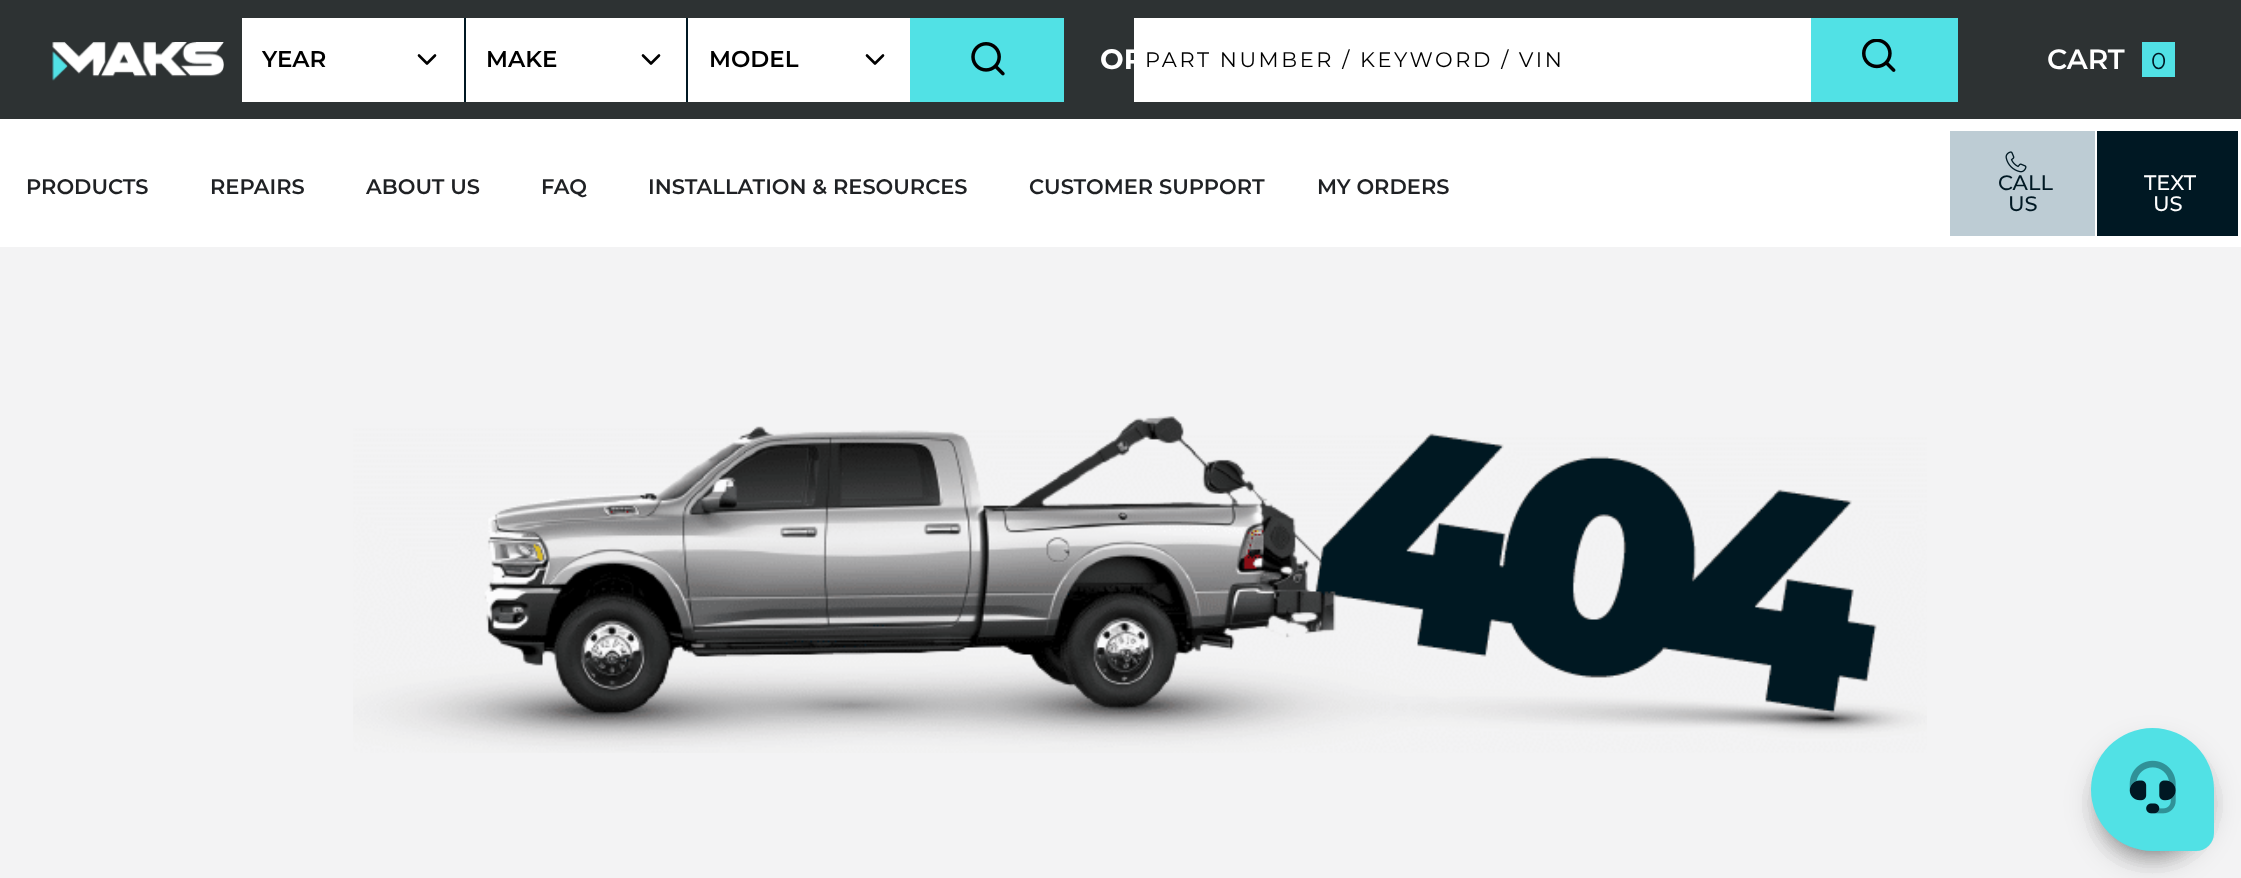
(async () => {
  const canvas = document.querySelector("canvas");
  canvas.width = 2241;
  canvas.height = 878;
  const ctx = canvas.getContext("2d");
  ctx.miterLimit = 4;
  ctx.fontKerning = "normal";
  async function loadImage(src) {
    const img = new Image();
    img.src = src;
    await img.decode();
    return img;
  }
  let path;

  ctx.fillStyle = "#f3f3f4";
  ctx.fillRect(0, 0, 2241, 878);
  ctx.fillStyle = "#2d3233";
  ctx.fillRect(0, 0, 2241, 119);
  ctx.drawImage(await loadImage("img/1.png"), 52, 42, 172, 39);
  ctx.fillStyle = "#ffffff";
  ctx.fillRect(242, 18, 222, 84);
  path = new Path2D("M419 55.5L427 63.5L435 55.5");
  ctx.strokeStyle = "#000000";
  ctx.lineWidth = 2.6;
  ctx.lineCap = "round";
  ctx.lineJoin = "round";
  ctx.stroke(path);
  ctx.fillStyle = "#001823";
  ctx.fillRect(464, 18, 2, 84);
  ctx.fillStyle = "#ffffff";
  ctx.fillRect(466, 18, 220, 84);
  path = new Path2D("M643 55.5L651 63.5L659 55.5");
  ctx.stroke(path);
  ctx.fillStyle = "#001823";
  ctx.fillRect(686, 18, 2, 84);
  ctx.fillStyle = "#ffffff";
  ctx.fillRect(688, 18, 222, 84);
  path = new Path2D("M867 55.5L875 63.5L883 55.5");
  ctx.stroke(path);
  ctx.fillStyle = "#51e1e5";
  ctx.fillRect(910, 18, 154, 84);
  ctx.drawImage(await loadImage("img/2.png"), 971, 42, 34, 34);
  ctx.fillStyle = "#ffffff";
  ctx.fillRect(1134, 18, 677, 84);
  ctx.fillStyle = "#51e1e5";
  ctx.fillRect(1811, 18, 147, 84);
  ctx.drawImage(await loadImage("img/3.png"), 1862, 39, 34, 33);
  for (const [x, y, w, h, color] of [
    [2142, 42, 33, 35, "#51e1e5"],
    [0, 119, 2241, 128, "#ffffff"],
    [1950, 131, 145, 105, "#bdccd4"],
  ]) {
    ctx.fillStyle = color;
    ctx.fillRect(x, y, w, h);
  }
  ctx.drawImage(await loadImage("img/4.png"), 2005, 151, 22, 22);
  ctx.fillStyle = "#001823";
  ctx.fillRect(2097, 131, 141, 105);
  ctx.drawImage(await loadImage("img/5.png"), 353, 416, 1574, 337);
  ctx.fillStyle = "rgba(0, 0, 0, 0.15)";
  ctx.filter = "blur(14px)";
  ctx.beginPath();
  ctx.roundRect(2091, 742, 123, 123, 61.5);
  ctx.fill();
  ctx.filter = "none";
  ctx.filter = "blur(14px)";
  ctx.beginPath();
  ctx.roundRect(2109, 760, 87, 87, 43.5);
  ctx.fill();
  ctx.filter = "none";
  ctx.filter = "blur(14px)";
  ctx.beginPath();
  ctx.roundRect(2109, 760, 87, 87, 43.5);
  ctx.fill();
  ctx.filter = "none";
  ctx.filter = "blur(14px)";
  ctx.beginPath();
  ctx.roundRect(2109, 760, 87, 87, 43.5);
  ctx.fill();
  ctx.filter = "none";
  ctx.filter = "blur(14px)";
  ctx.beginPath();
  ctx.roundRect(2109, 760, 87, 87, 43.5);
  ctx.fill();
  ctx.filter = "none";
  ctx.filter = "blur(14px)";
  ctx.beginPath();
  ctx.roundRect(2109, 760, 87, 87, 43.5);
  ctx.fill();
  ctx.filter = "none";
  ctx.fillStyle = "#51e1e5";
  ctx.beginPath();
  ctx.arc(2152.5, 789.5, 61.5, 0, Math.PI * 2);
  ctx.fill();
  ctx.beginPath();
  ctx.roundRect(2153, 789, 61, 62, [0, 0, 18, 0]);
  ctx.fill();
  ctx.drawImage(await loadImage("img/7.png"), 2129, 780, 47, 34);
  ctx.drawImage(await loadImage("img/6.png"), 2129, 760, 47, 54);
  ctx.font = "600 23px Montserrat";
  ctx.fillStyle = "#000000";
  for (const [text, x, y] of [
    ["YEAR", 262, 67],
    ["MAKE", 486, 67],
    ["MODEL", 709, 67],
  ]) {
    ctx.fillText(text, x, y);
  }
  ctx.font = "bold 28px Montserrat";
  ctx.fillStyle = "#ffffff";
  ctx.fillText("OR", 1100, 69);
  ctx.letterSpacing = "2.6px";
  ctx.font = "21px Montserrat";
  ctx.fillStyle = "#000000";
  ctx.fillText("PART NUMBER / KEYWORD / VIN", 1145, 67);
  ctx.letterSpacing = "0px";
  ctx.font = "600 28px Montserrat";
  ctx.fillStyle = "#ffffff";
  ctx.fillText("CART", 2047, 69);
  ctx.font = "23px Montserrat";
  ctx.fillStyle = "#001823";
  ctx.fillText("0", 2151, 69);
  ctx.font = "600 21px Montserrat";
  ctx.fillStyle = "#1f2124";
  for (const [text, x, y] of [
    ["PRODUCTS", 26, 194],
    ["REPAIRS", 210, 194],
    ["ABOUT US", 366, 194],
    ["FAQ", 541, 194],
    ["INSTALLATION & RESOURCES", 648, 194],
    ["CUSTOMER SUPPORT", 1029, 194],
    ["MY ORDERS", 1317, 194],
  ]) {
    ctx.fillText(text, x, y);
  }
  ctx.font = "500 21px Montserrat";
  ctx.fillStyle = "#001823";
  ctx.fillText("CALL", 1998, 190);
  ctx.fillText("US", 2008, 211);
  ctx.fillStyle = "#ffffff";
  ctx.fillText("TEXT", 2144, 190);
  ctx.fillText("US", 2153, 211);
})();
